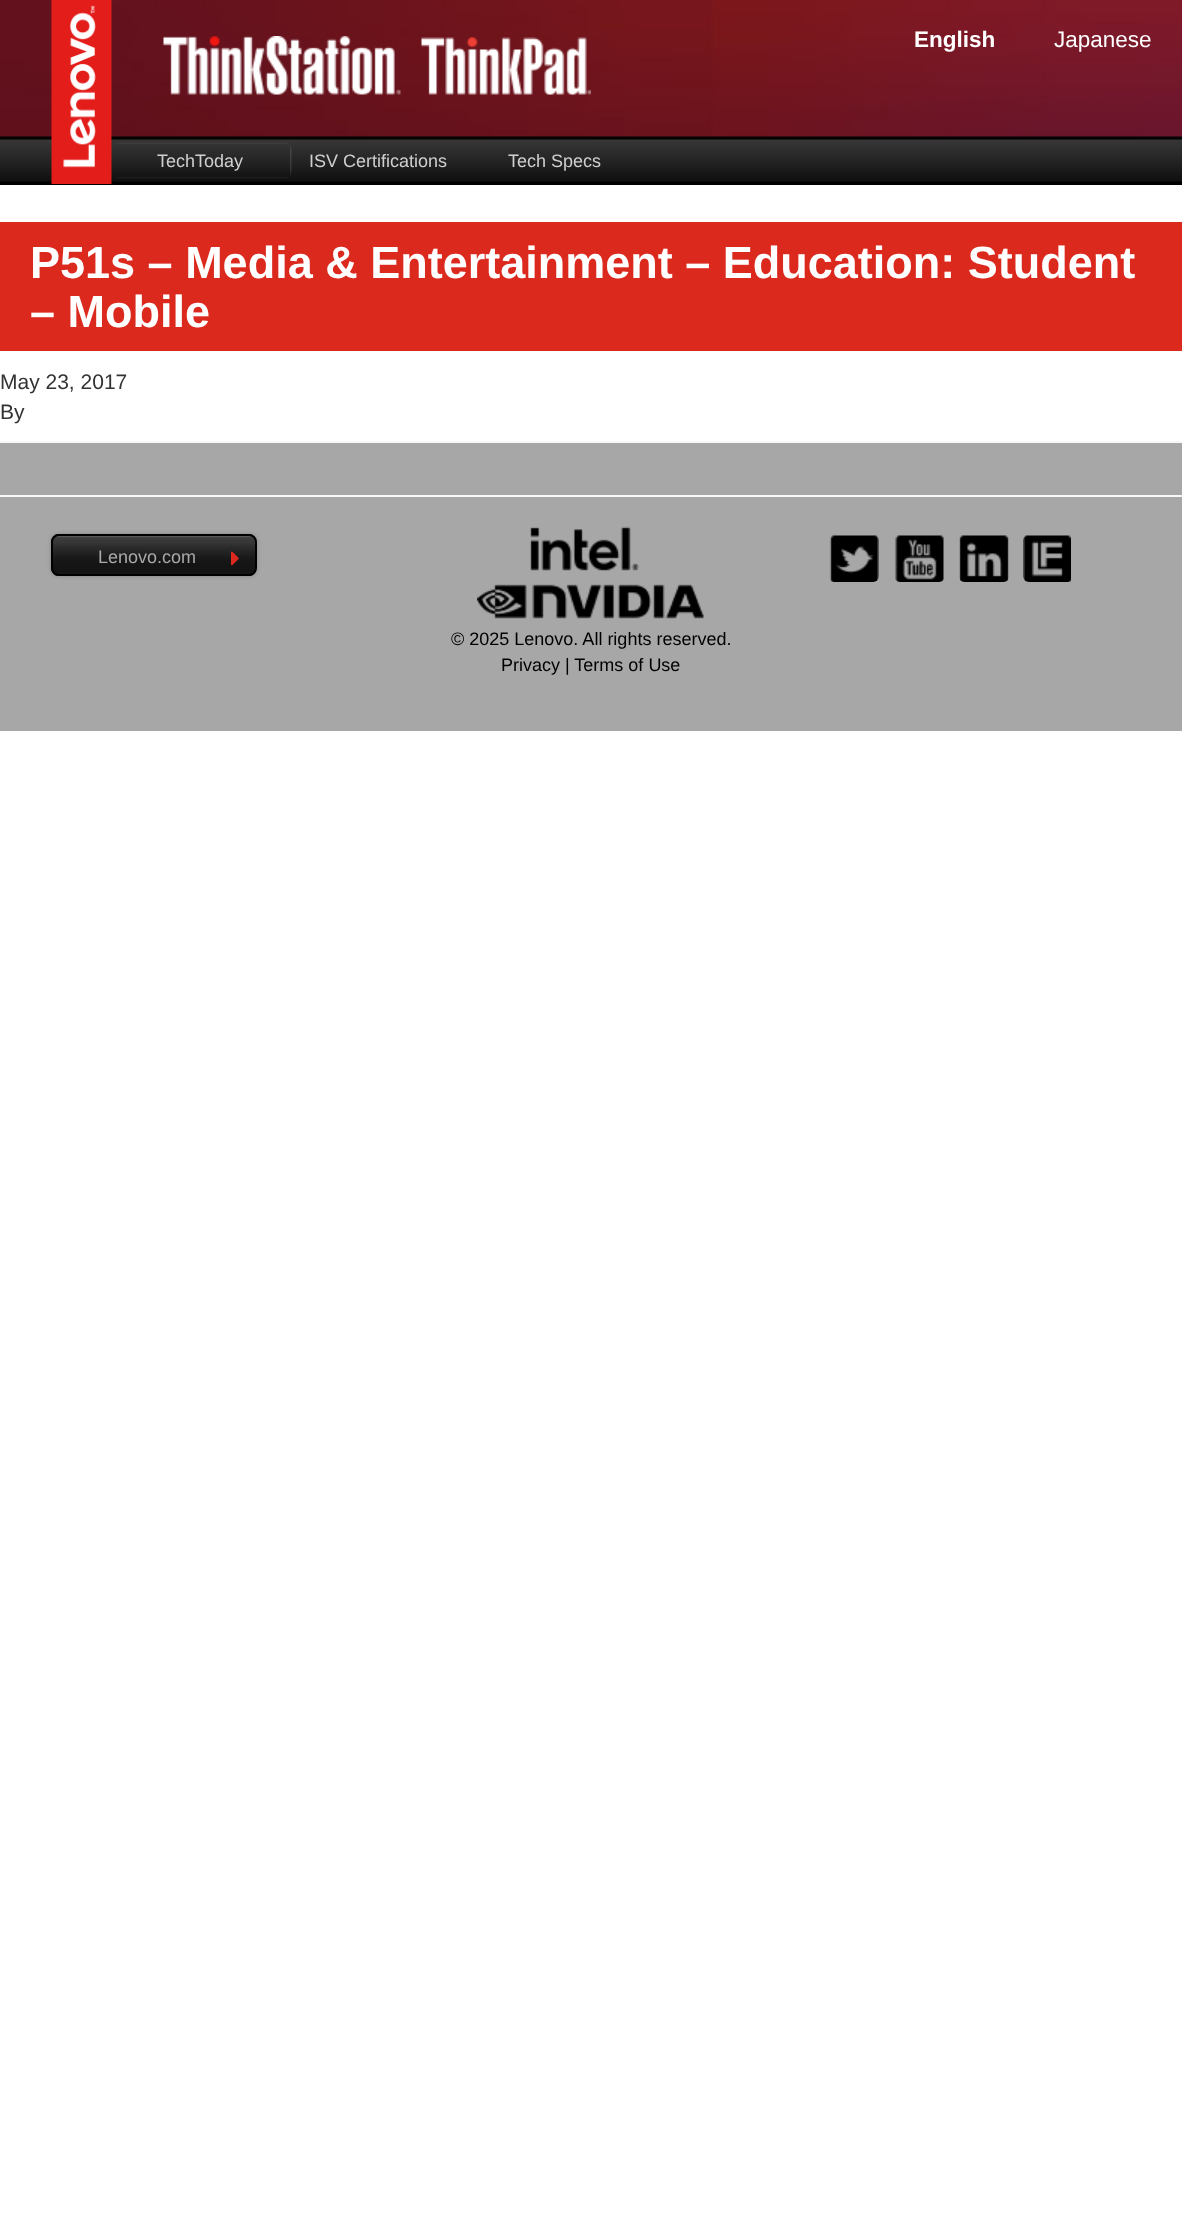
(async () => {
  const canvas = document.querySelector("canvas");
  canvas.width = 1182;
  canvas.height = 2236;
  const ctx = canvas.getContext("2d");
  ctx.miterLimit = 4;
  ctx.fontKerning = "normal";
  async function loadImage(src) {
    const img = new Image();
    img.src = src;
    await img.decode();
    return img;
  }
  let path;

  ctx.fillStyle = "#ffffff";
  ctx.fillRect(0, 0, 1182, 2236);
  ctx.fillStyle = "#000000";
  ctx.fillRect(0, 136, 1182, 1);
  ctx.drawImage(await loadImage("img/1.png"), 0, 0, 1182, 137);
  ctx.fillRect(0, 182, 1182, 3);
  ctx.drawImage(await loadImage("img/4.png"), 0, 137, 1182, 45);
  ctx.save();
  path = new Path2D("M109 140H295V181H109ZM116 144H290V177H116C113 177 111 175 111 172V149C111 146 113 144 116 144Z");
  ctx.clip(path, "evenodd");
  ctx.fillStyle = "#ffffff";
  ctx.filter = "blur(2px)";
  ctx.beginPath();
  ctx.roundRect(116, 147, 172, 27, 1.5);
  ctx.fill();
  ctx.filter = "none";
  ctx.restore();
  ctx.drawImage(await loadImage("img/2.png"), 51, 0, 61, 184);
  ctx.drawImage(await loadImage("img/3.png"), 163, 36, 428, 59);
  for (const [x, y, w, h, color] of [
    [0, 222, 1182, 129, "#dc291e"],
    [0, 443, 1182, 52, "#a7a7a7"],
    [0, 441, 1182, 2, "#f8f8f8"],
    [0, 497, 1182, 234, "#a7a7a7"],
    [0, 495, 1182, 2, "#f8f8f8"],
  ]) {
    ctx.fillStyle = color;
    ctx.fillRect(x, y, w, h);
  }
  ctx.fillStyle = "rgba(0, 0, 0, 0.2)";
  ctx.filter = "blur(2px)";
  ctx.beginPath();
  ctx.roundRect(51, 534, 206, 42, 8);
  ctx.fill();
  ctx.filter = "none";
  ctx.drawImage(await loadImage("img/5.png"), 51, 534, 206, 42);
  ctx.beginPath();
  ctx.roundRect(52, 535, 204, 40, 7);
  ctx.strokeStyle = "#000000";
  ctx.lineWidth = 2;
  ctx.stroke();
  ctx.drawImage(await loadImage("img/6.png"), 231, 551, 8, 15);
  ctx.drawImage(await loadImage("img/7.png"), 530, 526, 109, 45);
  ctx.drawImage(await loadImage("img/8.png"), 477, 584, 227, 35);
  ctx.drawImage(await loadImage("img/9.png"), 829, 535, 50, 47);
  ctx.drawImage(await loadImage("img/10.png"), 895, 535, 49, 47);
  ctx.drawImage(await loadImage("img/11.png"), 959, 535, 50, 47);
  ctx.drawImage(await loadImage("img/12.png"), 1023, 535, 48, 47);
  ctx.font = "bold 22.5px Liberation Sans";
  ctx.fillStyle = "#ffffff";
  ctx.fillText("English", 914, 47);
  ctx.font = "22.5px Liberation Sans";
  ctx.fillText("Japanese", 1054, 47);
  ctx.font = "18px Liberation Sans";
  ctx.fillStyle = "#cecfce";
  for (const [text, x, y] of [
    ["TechToday", 157, 167],
    ["ISV Certifications", 309, 167],
    ["Tech Specs", 508, 167],
  ]) {
    ctx.fillText(text, x, y);
  }
  ctx.font = "bold 45px Liberation Sans";
  ctx.fillStyle = "#ffffff";
  ctx.fillText("P51s – Media & Entertainment – Education: Student", 30, 278);
  ctx.fillText("– Mobile", 30, 327);
  ctx.font = "21px Liberation Sans";
  ctx.fillStyle = "#333333";
  ctx.fillText("May 23, 2017", 0, 389);
  ctx.fillText("By", 0, 419);
  ctx.font = "18px Liberation Sans";
  ctx.fillStyle = "#a9a9a9";
  ctx.fillText("Lenovo.com", 98, 563);
  ctx.fillStyle = "#000000";
  ctx.fillText("© 2025 Lenovo. All rights reserved.", 451, 645);
  ctx.fillText("Privacy | Terms of Use", 501, 671);
})();
